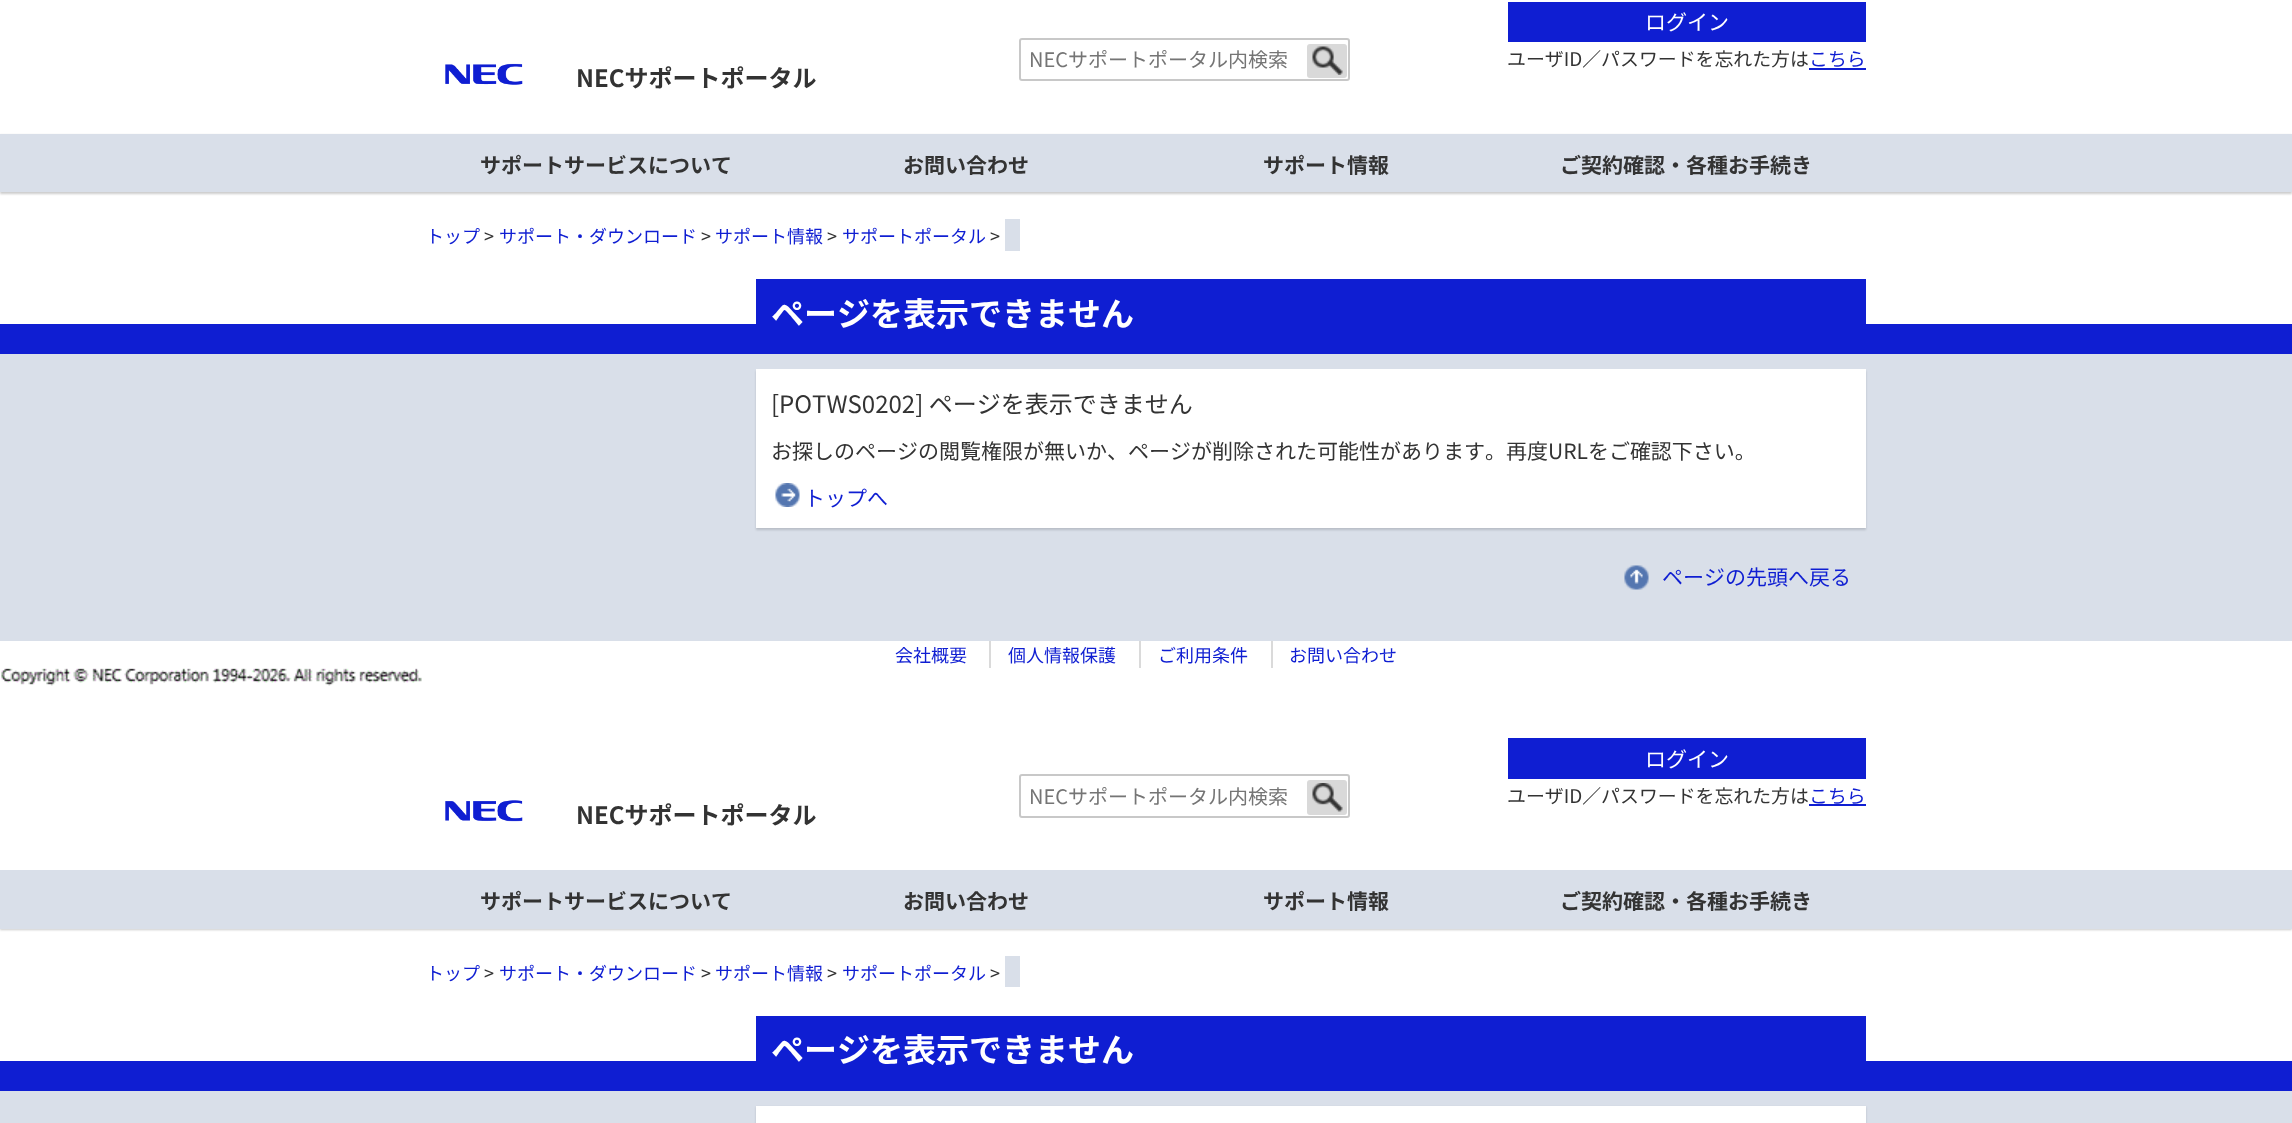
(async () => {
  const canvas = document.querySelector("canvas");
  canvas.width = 2292;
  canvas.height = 1123;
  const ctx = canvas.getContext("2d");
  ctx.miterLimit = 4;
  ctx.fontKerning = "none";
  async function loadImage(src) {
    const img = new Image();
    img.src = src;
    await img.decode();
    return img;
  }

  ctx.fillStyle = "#ffffff";
  ctx.fillRect(0, 0, 2292, 1123);
  ctx.beginPath();
  ctx.roundRect(1020, 39, 329, 41, 2);
  ctx.strokeStyle = "#c8c8c8";
  ctx.lineWidth = 2;
  ctx.stroke();
  ctx.fillStyle = "#d9d9d9";
  ctx.beginPath();
  ctx.roundRect(1307, 44, 40, 34, 3);
  ctx.fill();
  ctx.drawImage(await loadImage("img/1.png"), 1312, 46, 31, 29);
  ctx.fillStyle = "#0f1ed2";
  ctx.fillRect(1508, 2, 358, 40);
  ctx.fillRect(1809, 68, 57, 2);
  ctx.drawImage(await loadImage("img/2.png"), 445, 63, 78, 22);
  ctx.fillStyle = "rgba(0, 0, 0, 0.2)";
  ctx.filter = "blur(1px)";
  ctx.beginPath();
  ctx.rect(0, 135, 2292, 59);
  ctx.fill();
  ctx.filter = "none";
  for (const [x, y, w, h, color] of [
    [0, 134, 2292, 58, "#d9dfe9"],
    [1005, 219, 15, 32, "#d9dfe9"],
    [0, 354, 2292, 287, "#d9dfe9"],
    [756, 279, 1110, 45, "#0f1ed2"],
  ]) {
    ctx.fillStyle = color;
    ctx.fillRect(x, y, w, h);
  }
  ctx.fillStyle = "rgba(0, 0, 0, 0.15)";
  ctx.filter = "blur(1px)";
  ctx.beginPath();
  ctx.rect(756, 371, 1110, 159);
  ctx.fill();
  ctx.filter = "none";
  ctx.fillStyle = "#ffffff";
  ctx.fillRect(756, 369, 1110, 159);
  ctx.drawImage(await loadImage("img/3.png"), 775, 483, 25, 24);
  ctx.drawImage(await loadImage("img/4.png"), 1624, 565, 25, 25);
  for (const [x, y, w, h, color] of [
    [0, 324, 2292, 30, "#0f1ed2"],
    [989, 641, 2, 27, "#dadada"],
    [1139, 641, 2, 27, "#dadada"],
    [1271, 641, 2, 27, "#dadada"],
  ]) {
    ctx.fillStyle = color;
    ctx.fillRect(x, y, w, h);
  }
  ctx.drawImage(await loadImage("img/5.png"), 1, 668, 421, 18);
  ctx.beginPath();
  ctx.roundRect(1020, 775, 329, 42, 2);
  ctx.stroke();
  ctx.fillStyle = "#d9d9d9";
  ctx.beginPath();
  ctx.roundRect(1307, 780, 40, 35, 3);
  ctx.fill();
  ctx.drawImage(await loadImage("img/6.png"), 1312, 783, 31, 29);
  ctx.fillStyle = "#0f1ed2";
  ctx.fillRect(1508, 738, 358, 41);
  ctx.fillRect(1809, 804, 57, 2);
  ctx.drawImage(await loadImage("img/7.png"), 445, 800, 78, 22);
  ctx.fillStyle = "rgba(0, 0, 0, 0.2)";
  ctx.filter = "blur(1px)";
  ctx.beginPath();
  ctx.rect(0, 872, 2292, 58);
  ctx.fill();
  ctx.filter = "none";
  for (const [x, y, w, h, color] of [
    [0, 870, 2292, 59, "#d9dfe9"],
    [1005, 956, 15, 31, "#d9dfe9"],
    [0, 1091, 2292, 32, "#d9dfe9"],
    [756, 1016, 1110, 45, "#0f1ed2"],
  ]) {
    ctx.fillStyle = color;
    ctx.fillRect(x, y, w, h);
  }
  ctx.fillStyle = "rgba(0, 0, 0, 0.15)";
  ctx.filter = "blur(1px)";
  ctx.beginPath();
  ctx.rect(756, 1107, 1110, 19);
  ctx.fill();
  ctx.filter = "none";
  ctx.fillStyle = "#ffffff";
  ctx.fillRect(756, 1106, 1110, 17);
  ctx.fillStyle = "#0f1ed2";
  ctx.fillRect(0, 1061, 2292, 30);
  ctx.font = "20px Noto Sans JP";
  ctx.fillStyle = "#757575";
  ctx.fillText("NECサポートポータル内検索", 1029, 67);
  ctx.font = "21px Noto Sans JP";
  ctx.fillStyle = "#ffffff";
  ctx.fillText("ログイン", 1645, 30);
  ctx.font = "18.9px Noto Sans JP";
  ctx.fillStyle = "#333333";
  ctx.fillText("ユーザID／パスワードを忘れた方は", 1507, 66);
  ctx.fillStyle = "#0f1ed2";
  ctx.fillText("こちら", 1809, 66);
  ctx.font = "bold 24px Noto Sans JP";
  ctx.fillStyle = "#333333";
  ctx.fillText("NECサポートポータル", 576, 87);
  ctx.font = "bold 21px Noto Sans JP";
  for (const [text, x, y] of [
    ["サポートサービスについて", 480, 173],
    ["お問い合わせ", 903, 173],
    ["サポート情報", 1263, 173],
    ["ご契約確認・各種お手続き", 1560, 173],
  ]) {
    ctx.fillText(text, x, y);
  }
  ctx.font = "18px Noto Sans JP";
  ctx.fillStyle = "#0f1ed2";
  ctx.fillText("トップ", 426, 243);
  ctx.fillStyle = "#333333";
  ctx.fillText(">", 484, 243);
  ctx.fillStyle = "#0f1ed2";
  ctx.fillText("サポート・ダウンロード", 499, 243);
  ctx.fillStyle = "#333333";
  ctx.fillText(">", 701, 243);
  ctx.fillStyle = "#0f1ed2";
  ctx.fillText("サポート情報", 715, 243);
  ctx.fillStyle = "#333333";
  ctx.fillText(">", 827, 243);
  ctx.fillStyle = "#0f1ed2";
  ctx.fillText("サポートポータル", 842, 243);
  ctx.fillStyle = "#333333";
  ctx.fillText(">", 990, 243);
  ctx.font = "bold 33px Noto Sans JP";
  ctx.fillStyle = "#ffffff";
  ctx.fillText("ページを表示できません", 771, 326);
  ctx.font = "24px Noto Sans JP";
  ctx.fillStyle = "#333333";
  ctx.fillText("[POTWS0202] ページを表示できません", 771, 413);
  ctx.font = "21px Noto Sans JP";
  ctx.fillText("お探しのページの閲覧権限が無いか、ページが削除された可能性があります。再度URLをご確認下さい。", 771, 459);
  ctx.fillStyle = "#0f1ed2";
  ctx.fillText("トップへ", 804, 506);
  ctx.fillText("ページの先頭へ戻る", 1662, 585);
  ctx.font = "18px Noto Sans JP";
  for (const [text, x, y] of [
    ["会社概要", 895, 662],
    ["個人情報保護", 1008, 662],
    ["ご利用条件", 1158, 662],
    ["お問い合わせ", 1289, 662],
  ]) {
    ctx.fillText(text, x, y);
  }
  ctx.font = "20px Noto Sans JP";
  ctx.fillStyle = "#757575";
  ctx.fillText("NECサポートポータル内検索", 1029, 804);
  ctx.font = "21px Noto Sans JP";
  ctx.fillStyle = "#ffffff";
  ctx.fillText("ログイン", 1645, 767);
  ctx.font = "18.9px Noto Sans JP";
  ctx.fillStyle = "#333333";
  ctx.fillText("ユーザID／パスワードを忘れた方は", 1507, 803);
  ctx.fillStyle = "#0f1ed2";
  ctx.fillText("こちら", 1809, 803);
  ctx.font = "bold 24px Noto Sans JP";
  ctx.fillStyle = "#333333";
  ctx.fillText("NECサポートポータル", 576, 824);
  ctx.font = "bold 21px Noto Sans JP";
  for (const [text, x, y] of [
    ["サポートサービスについて", 480, 909],
    ["お問い合わせ", 903, 909],
    ["サポート情報", 1263, 909],
    ["ご契約確認・各種お手続き", 1560, 909],
  ]) {
    ctx.fillText(text, x, y);
  }
  ctx.font = "18px Noto Sans JP";
  ctx.fillStyle = "#0f1ed2";
  ctx.fillText("トップ", 426, 980);
  ctx.fillStyle = "#333333";
  ctx.fillText(">", 484, 980);
  ctx.fillStyle = "#0f1ed2";
  ctx.fillText("サポート・ダウンロード", 499, 980);
  ctx.fillStyle = "#333333";
  ctx.fillText(">", 701, 980);
  ctx.fillStyle = "#0f1ed2";
  ctx.fillText("サポート情報", 715, 980);
  ctx.fillStyle = "#333333";
  ctx.fillText(">", 827, 980);
  ctx.fillStyle = "#0f1ed2";
  ctx.fillText("サポートポータル", 842, 980);
  ctx.fillStyle = "#333333";
  ctx.fillText(">", 990, 980);
  ctx.font = "bold 33px Noto Sans JP";
  ctx.fillStyle = "#ffffff";
  ctx.fillText("ページを表示できません", 771, 1062);
})();
